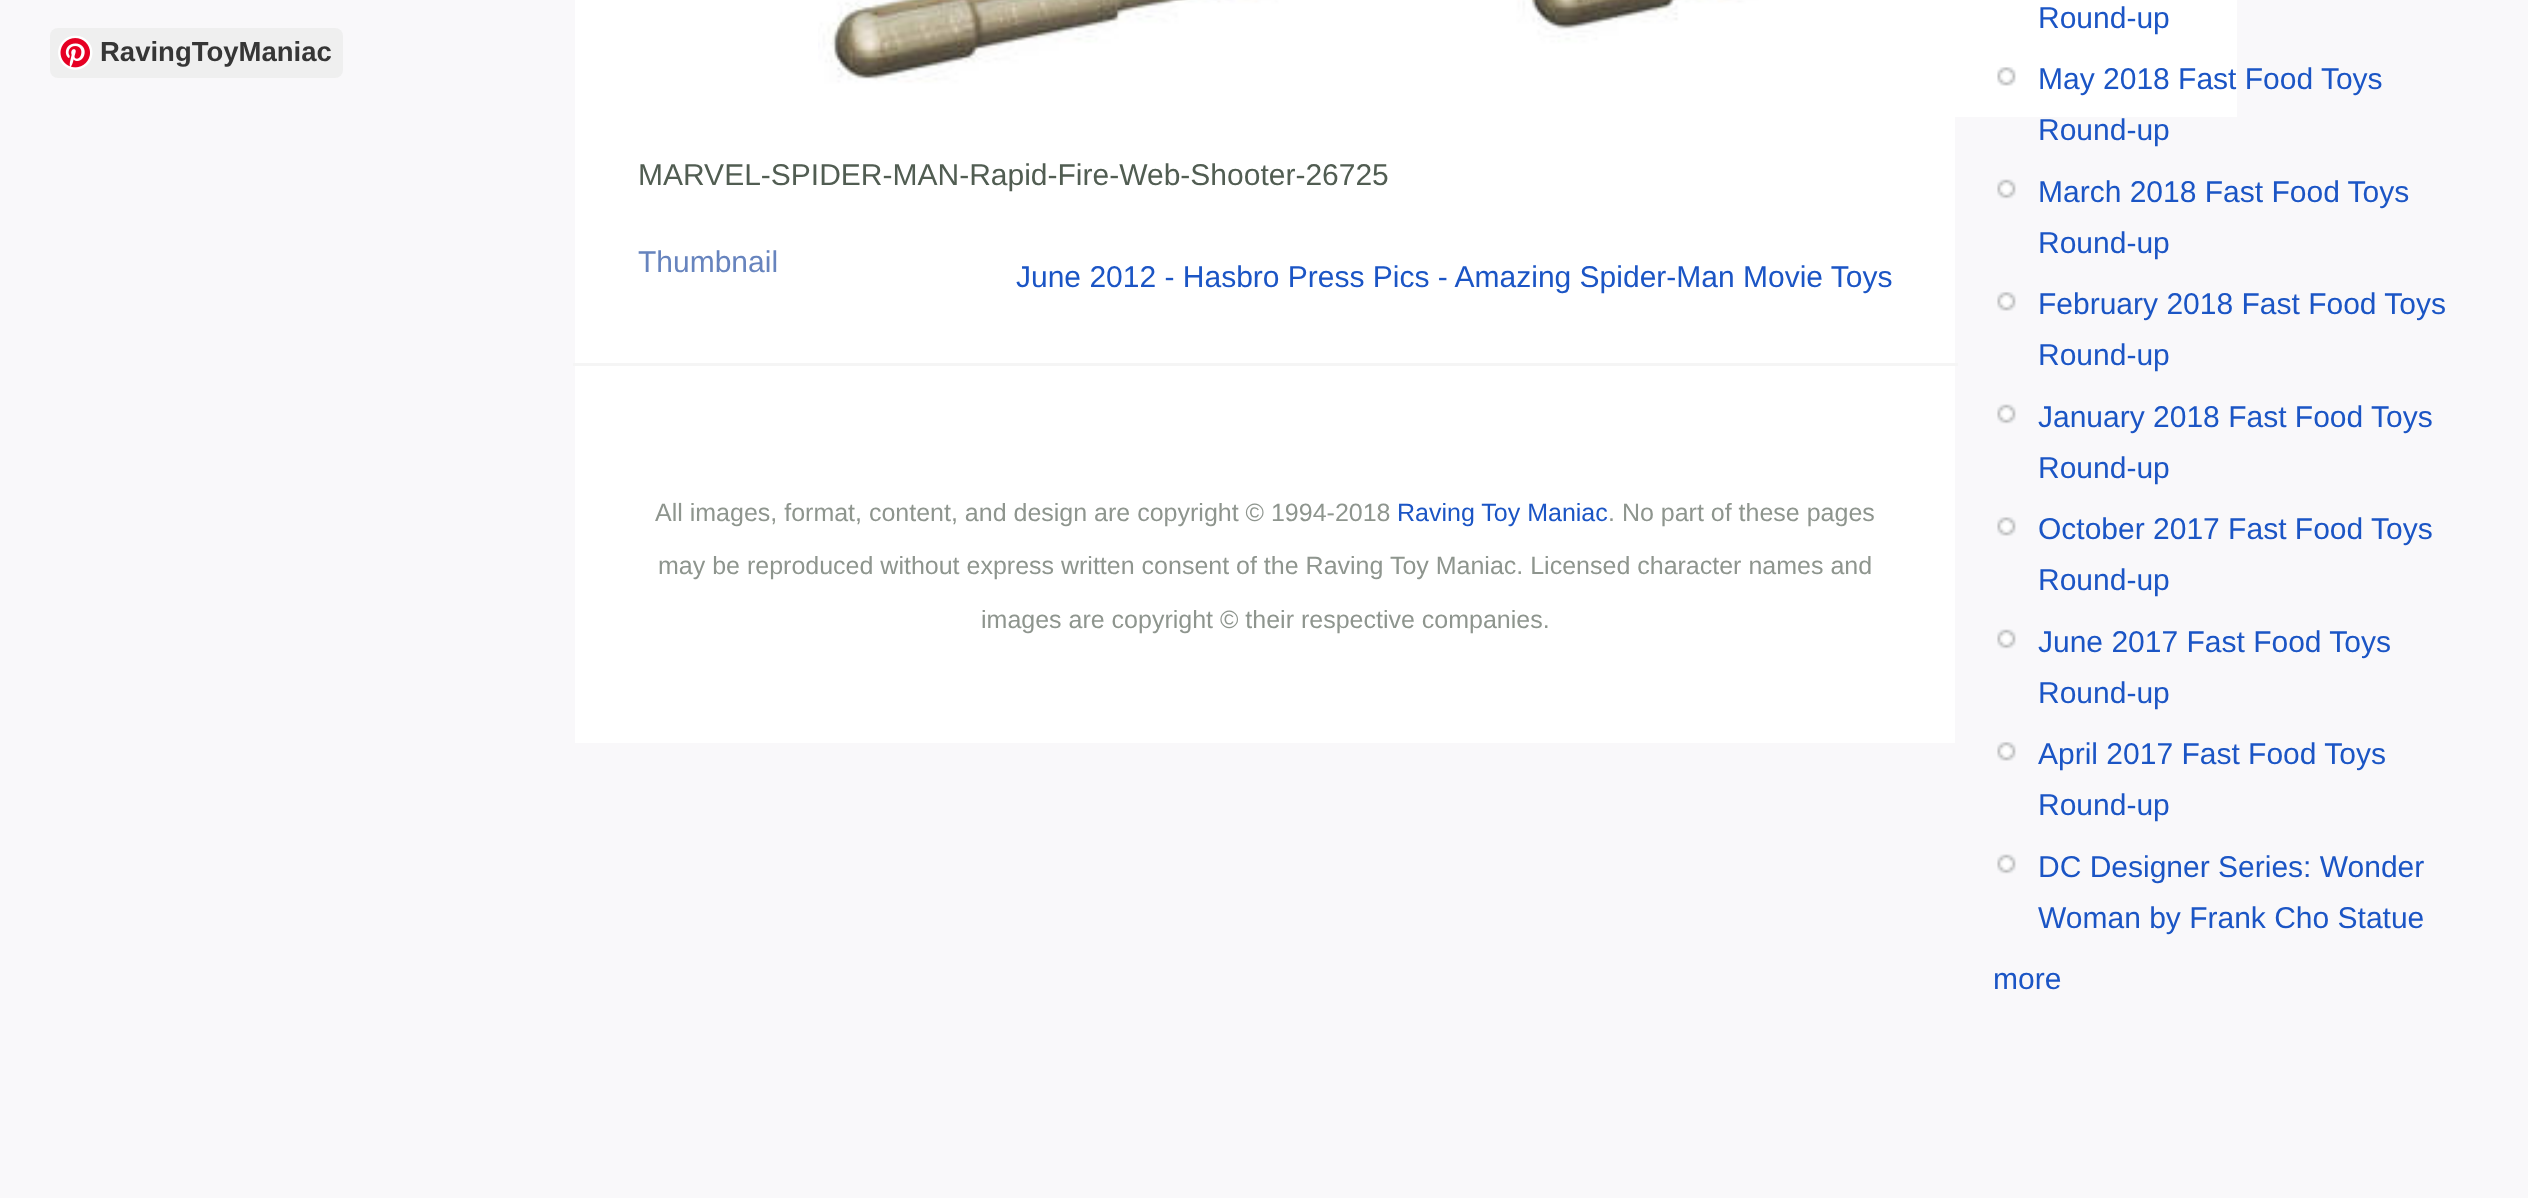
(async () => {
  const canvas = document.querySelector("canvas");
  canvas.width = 2528;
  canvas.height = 1198;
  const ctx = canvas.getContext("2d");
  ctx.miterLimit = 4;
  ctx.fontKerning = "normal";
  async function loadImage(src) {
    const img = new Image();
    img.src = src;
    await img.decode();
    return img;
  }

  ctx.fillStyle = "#f9f8fa";
  ctx.fillRect(0, 0, 2528, 1198);
  ctx.fillStyle = "#efefef";
  ctx.beginPath();
  ctx.roundRect(50, 28, 293, 50, 8);
  ctx.fill();
  ctx.drawImage(await loadImage("img/1.png"), 58, 35, 35, 35);
  ctx.fillStyle = "#ffffff";
  ctx.fillRect(575, 0, 1380, 743);
  ctx.drawImage(await loadImage("img/6.png"), 818, 0, 1419, 117);
  ctx.drawImage(await loadImage("img/2.png"), 1997, 67, 19, 19);
  ctx.drawImage(await loadImage("img/3.png"), 1997, 179, 19, 20);
  ctx.drawImage(await loadImage("img/4.png"), 1997, 292, 19, 19);
  ctx.drawImage(await loadImage("img/3.png"), 1997, 404, 19, 20);
  ctx.drawImage(await loadImage("img/5.png"), 1997, 517, 19, 19);
  ctx.drawImage(await loadImage("img/3.png"), 1997, 629, 19, 20);
  ctx.drawImage(await loadImage("img/4.png"), 1997, 742, 19, 19);
  ctx.drawImage(await loadImage("img/3.png"), 1997, 854, 19, 20);
  ctx.fillStyle = "#f5f5f5";
  ctx.fillRect(573, 363, 1385, 3);
  ctx.font = "bold 27.5px Liberation Sans";
  ctx.fillStyle = "#363636";
  ctx.fillText("RavingToyManiac", 100, 61);
  ctx.font = "30px Liberation Sans";
  ctx.fillStyle = "#1b55c5";
  for (const [text, x, y] of [
    ["Round-up", 2038, 28],
    ["May 2018 Fast Food Toys", 2038, 89],
    ["Round-up", 2038, 140],
    ["March 2018 Fast Food Toys", 2038, 202],
    ["Round-up", 2038, 253],
    ["February 2018 Fast Food Toys", 2038, 314],
    ["Round-up", 2038, 365],
    ["January 2018 Fast Food Toys", 2038, 427],
    ["Round-up", 2038, 478],
    ["October 2017 Fast Food Toys", 2038, 539],
    ["Round-up", 2038, 590],
    ["June 2017 Fast Food Toys", 2038, 652],
    ["Round-up", 2038, 703],
    ["April 2017 Fast Food Toys", 2038, 764],
    ["Round-up", 2038, 815],
    ["DC Designer Series: Wonder", 2038, 877],
    ["Woman by Frank Cho Statue", 2038, 928],
    ["more", 1993, 989],
  ]) {
    ctx.fillText(text, x, y);
  }
  ctx.fillStyle = "#515d52";
  ctx.fillText("MARVEL-SPIDER-MAN-Rapid-Fire-Web-Shooter-26725", 638, 185);
  ctx.fillStyle = "#6784be";
  ctx.fillText("Thumbnail", 638, 272);
  ctx.fillStyle = "#1b55c5";
  ctx.fillText("June 2012 - Hasbro Press Pics - Amazing Spider-Man Movie Toys", 1016, 287);
  ctx.font = "25px Liberation Sans";
  ctx.fillStyle = "#8e958e";
  ctx.fillText("All images, format, content, and design are copyright © 1994-2018", 655, 521);
  ctx.fillStyle = "#1b55c5";
  ctx.fillText("Raving Toy Maniac", 1397, 521);
  ctx.fillStyle = "#8e958e";
  for (const [text, x, y] of [
    [". No part of these pages", 1608, 521],
    ["may be reproduced without express written consent of the Raving Toy Maniac. Licensed character names and", 658, 574],
    ["images are copyright © their respective companies.", 981, 628],
  ]) {
    ctx.fillText(text, x, y);
  }
})();
